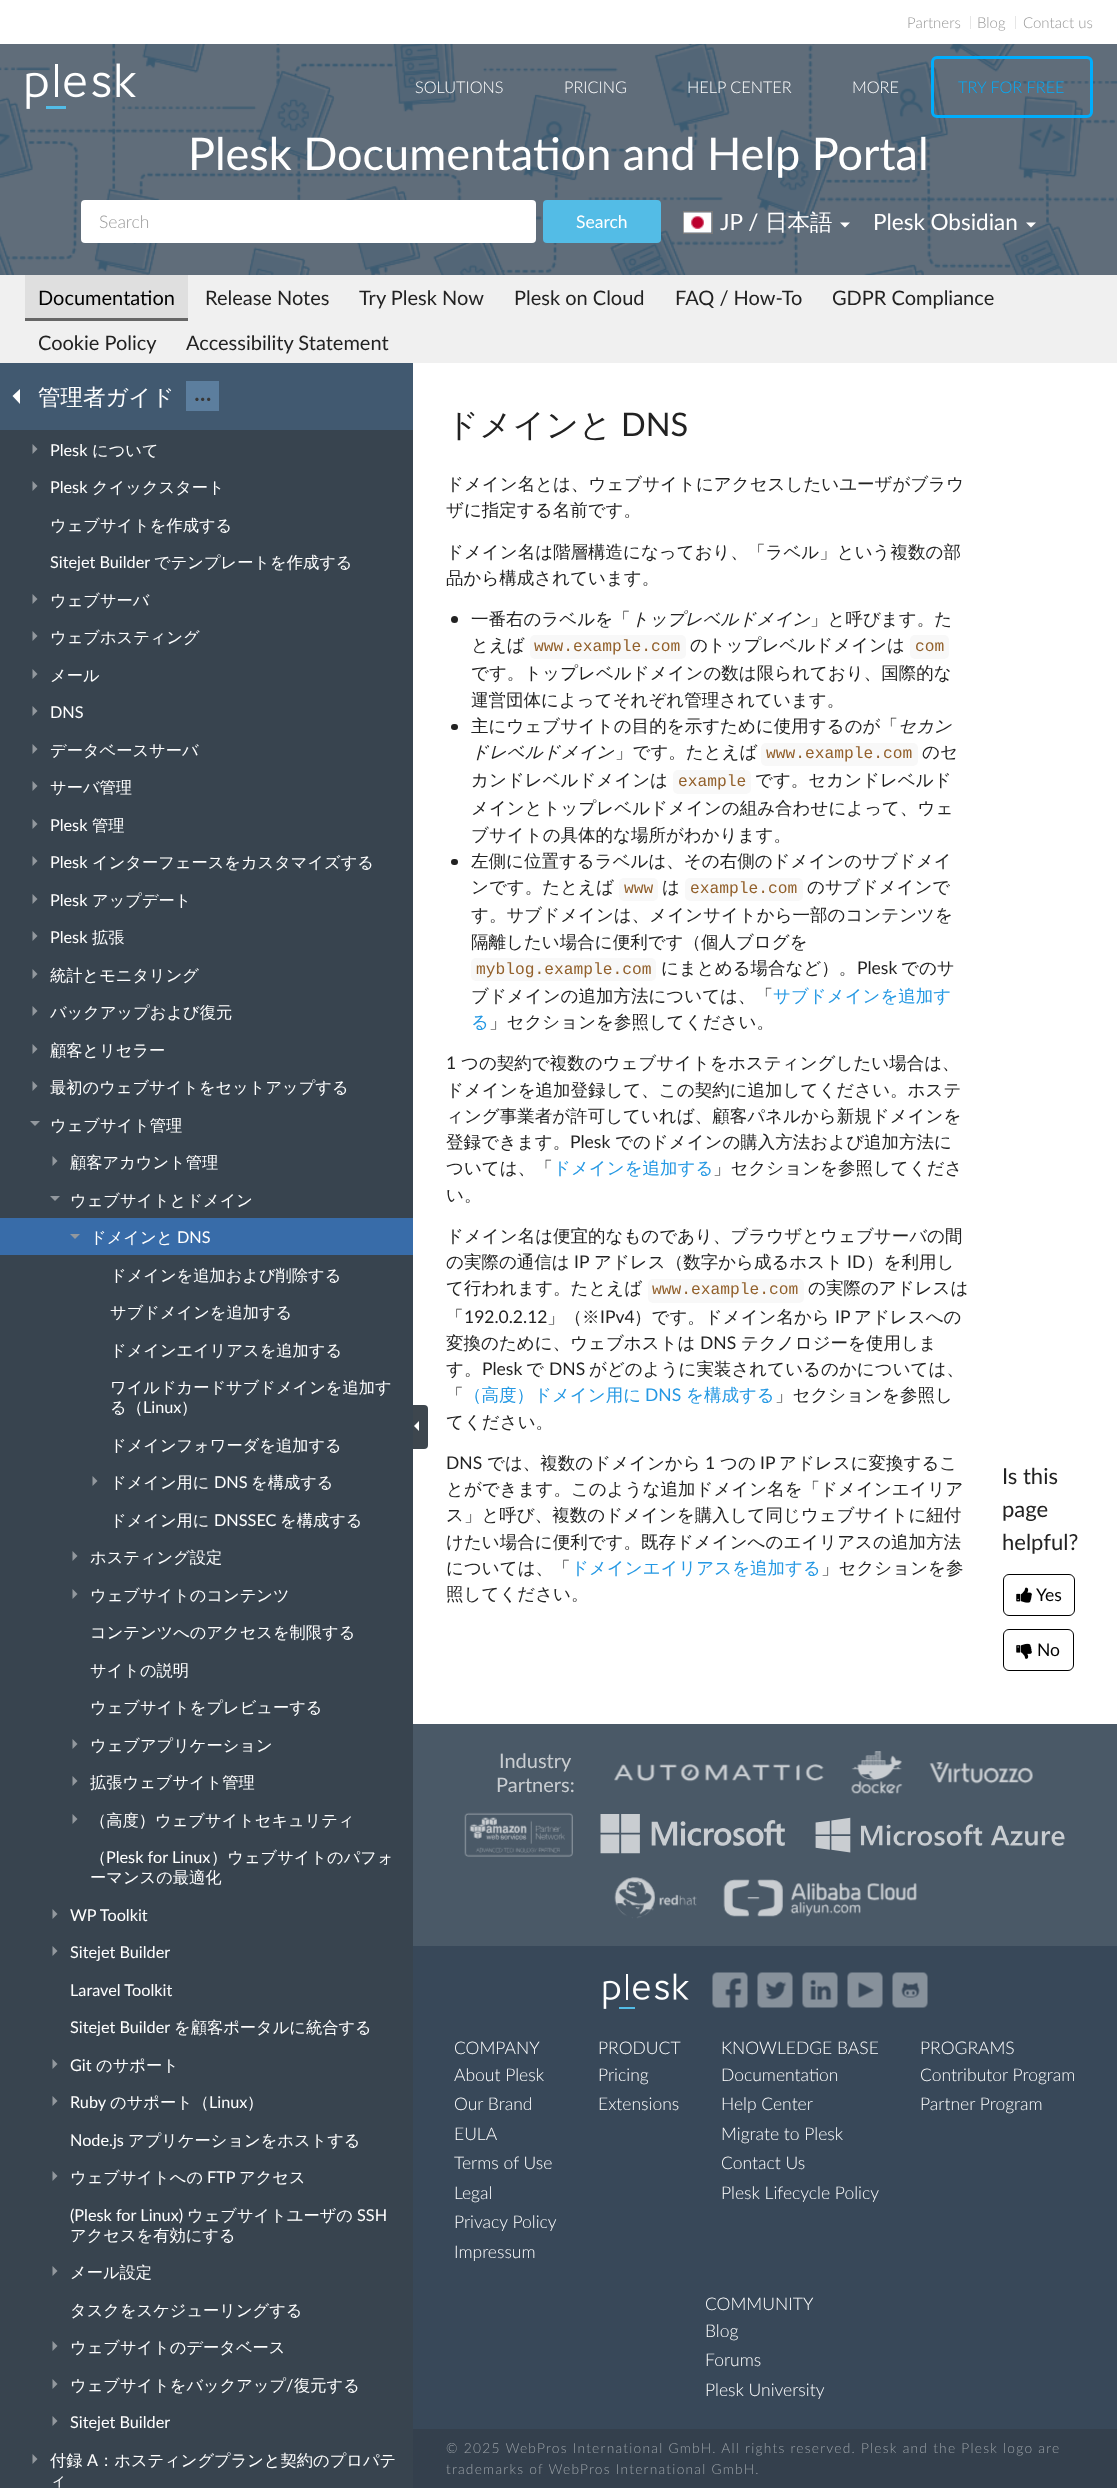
(async () => {
  const canvas = document.querySelector("canvas");
  canvas.width = 1117;
  canvas.height = 2488;
  const ctx = canvas.getContext("2d");
  ctx.miterLimit = 4;
  ctx.fontKerning = "normal";
  async function loadImage(src) {
    const img = new Image();
    img.src = src;
    await img.decode();
    return img;
  }
  let path;

  ctx.fillStyle = "#ffffff";
  ctx.fillRect(0, 0, 1117, 2488);
  ctx.drawImage(await loadImage("img/1.png"), 0, 44, 1117, 231);
  ctx.fillStyle = "#e6e6e6";
  ctx.fillRect(970, 16, 1, 13);
  ctx.fillRect(1015, 16, 1, 13);
  ctx.drawImage(await loadImage("img/2.png"), 26, 63, 110, 46);
  ctx.beginPath();
  ctx.roundRect(932.5, 57.5, 159, 59, 4.5);
  ctx.strokeStyle = "#00adfc";
  ctx.lineWidth = 3;
  ctx.stroke();
  ctx.fillStyle = "#ffffff";
  ctx.beginPath();
  ctx.roundRect(81, 200, 455, 43, 4);
  ctx.fill();
  ctx.fillStyle = "#53bce6";
  ctx.beginPath();
  ctx.roundRect(543, 200, 118, 43, 4);
  ctx.fill();
  ctx.strokeStyle = "#7b7b7b";
  ctx.lineWidth = 1;
  ctx.strokeRect(683.5, 211.5, 29, 22);
  ctx.drawImage(await loadImage("img/3.png"), 683, 212, 29, 21);
  ctx.fillStyle = "#ffffff";
  path = new Path2D("M840 222.5H850L845 227.5Z");
  ctx.fill(path);
  path = new Path2D("M1026 222.5H1036L1031 227.5Z");
  ctx.fill(path);
  for (const [x, y, w, h, color] of [
    [0, 275, 1117, 88, "#f0f0f0"],
    [25, 275, 163, 43, "#dfdfdf"],
    [25, 318, 163, 3, "#666666"],
    [0, 430, 413, 2058, "#38444f"],
    [0, 363, 413, 67, "#415970"],
  ]) {
    ctx.fillStyle = color;
    ctx.fillRect(x, y, w, h);
  }
  ctx.fillStyle = "#ffffff";
  path = new Path2D("M20 389V404L12.5 396Z");
  ctx.fill(path);
  ctx.fillStyle = "#5c7e9e";
  ctx.fillRect(186, 381, 33, 30);
  ctx.fillStyle = "#92989e";
  path = new Path2D("M32.5 454V444L37.5 449Z");
  ctx.fill(path);
  path = new Path2D("M32.5 491V481L37.5 486Z");
  ctx.fill(path);
  path = new Path2D("M32.5 604V594L37.5 599Z");
  ctx.fill(path);
  path = new Path2D("M32.5 641V631L37.5 636Z");
  ctx.fill(path);
  path = new Path2D("M32.5 679V669L37.5 674Z");
  ctx.fill(path);
  path = new Path2D("M32.5 716V706L37.5 711Z");
  ctx.fill(path);
  path = new Path2D("M32.5 754V744L37.5 749Z");
  ctx.fill(path);
  path = new Path2D("M32.5 791V781L37.5 786Z");
  ctx.fill(path);
  path = new Path2D("M32.5 829V819L37.5 824Z");
  ctx.fill(path);
  path = new Path2D("M32.5 866V856L37.5 861Z");
  ctx.fill(path);
  path = new Path2D("M32.5 904V894L37.5 899Z");
  ctx.fill(path);
  path = new Path2D("M32.5 941V931L37.5 936Z");
  ctx.fill(path);
  path = new Path2D("M32.5 979V969L37.5 974Z");
  ctx.fill(path);
  path = new Path2D("M32.5 1016V1006L37.5 1011Z");
  ctx.fill(path);
  path = new Path2D("M32.5 1054V1044L37.5 1049Z");
  ctx.fill(path);
  path = new Path2D("M32.5 1091V1081L37.5 1086Z");
  ctx.fill(path);
  path = new Path2D("M30 1121H40L35 1126Z");
  ctx.fill(path);
  path = new Path2D("M52.5 1166V1156L57.5 1161Z");
  ctx.fill(path);
  path = new Path2D("M50 1196H60L55 1201Z");
  ctx.fill(path);
  ctx.fillStyle = "#386ca9";
  ctx.fillRect(0, 1218, 413, 37);
  ctx.fillStyle = "#92989e";
  path = new Path2D("M70 1234H80L75 1239Z");
  ctx.fill(path);
  path = new Path2D("M92.5 1486V1476L97.5 1481Z");
  ctx.fill(path);
  path = new Path2D("M72.5 1561V1551L77.5 1556Z");
  ctx.fill(path);
  path = new Path2D("M72.5 1599V1589L77.5 1594Z");
  ctx.fill(path);
  path = new Path2D("M72.5 1749V1739L77.5 1744Z");
  ctx.fill(path);
  path = new Path2D("M72.5 1786V1776L77.5 1781Z");
  ctx.fill(path);
  path = new Path2D("M72.5 1824V1814L77.5 1819Z");
  ctx.fill(path);
  path = new Path2D("M52.5 1919V1909L57.5 1914Z");
  ctx.fill(path);
  path = new Path2D("M52.5 1956V1946L57.5 1951Z");
  ctx.fill(path);
  path = new Path2D("M52.5 2069V2059L57.5 2064Z");
  ctx.fill(path);
  path = new Path2D("M52.5 2106V2096L57.5 2101Z");
  ctx.fill(path);
  path = new Path2D("M52.5 2181V2171L57.5 2176Z");
  ctx.fill(path);
  path = new Path2D("M52.5 2276V2266L57.5 2271Z");
  ctx.fill(path);
  path = new Path2D("M52.5 2351V2341L57.5 2346Z");
  ctx.fill(path);
  path = new Path2D("M52.5 2389V2379L57.5 2384Z");
  ctx.fill(path);
  path = new Path2D("M52.5 2426V2416L57.5 2421Z");
  ctx.fill(path);
  path = new Path2D("M32.5 2464V2454L37.5 2459Z");
  ctx.fill(path);
  ctx.fillStyle = "#3d464e";
  ctx.beginPath();
  ctx.roundRect(413, 1405, 15, 44, [0, 4, 4, 0]);
  ctx.fill();
  ctx.fillStyle = "#ffffff";
  path = new Path2D("M419 1421V1431L414 1426Z");
  ctx.fill(path);
  ctx.fillStyle = "#222222";
  ctx.beginPath();
  ctx.arc(454.5, 619.5, 3.5, 0, Math.PI * 2);
  ctx.fill();
  ctx.fillStyle = "#f8f8f8";
  ctx.beginPath();
  ctx.roundRect(530, 635, 156, 24, 5);
  ctx.fill();
  ctx.beginPath();
  ctx.roundRect(910, 635, 39, 24, 5);
  ctx.fill();
  ctx.fillStyle = "#222222";
  ctx.beginPath();
  ctx.roundRect(451, 724, 7, 6, 3);
  ctx.fill();
  ctx.fillStyle = "#f8f8f8";
  ctx.beginPath();
  ctx.roundRect(761, 743, 157, 23, 5);
  ctx.fill();
  ctx.beginPath();
  ctx.roundRect(673, 770, 78, 24, 5);
  ctx.fill();
  ctx.fillStyle = "#222222";
  ctx.beginPath();
  ctx.roundRect(451, 859, 7, 6, 3);
  ctx.fill();
  ctx.fillStyle = "#f8f8f8";
  ctx.beginPath();
  ctx.roundRect(619, 878, 39, 23, 5);
  ctx.fill();
  ctx.beginPath();
  ctx.roundRect(685, 878, 118, 23, 5);
  ctx.fill();
  ctx.beginPath();
  ctx.roundRect(471, 958, 185, 23, 5);
  ctx.fill();
  ctx.beginPath();
  ctx.roundRect(648, 1279, 156, 24, 5);
  ctx.fill();
  ctx.beginPath();
  ctx.roundRect(1003.5, 1574.5, 71, 41, 5.5);
  ctx.strokeStyle = "#000000";
  ctx.stroke();
  ctx.drawImage(await loadImage("img/4.png"), 1016, 1587, 16, 16);
  ctx.beginPath();
  ctx.roundRect(1003.5, 1629.5, 70, 41, 5.5);
  ctx.stroke();
  ctx.drawImage(await loadImage("img/5.png"), 1016, 1643, 16, 16);
  ctx.fillStyle = "#384859";
  ctx.fillRect(413, 1946, 704, 483);
  ctx.fillStyle = "#4a5967";
  ctx.fillRect(413, 1724, 704, 222);
  ctx.drawImage(await loadImage("img/6.png"), 614, 1764, 210, 18);
  ctx.drawImage(await loadImage("img/7.png"), 851, 1751, 52, 43);
  ctx.drawImage(await loadImage("img/8.png"), 929, 1762, 104, 22);
  ctx.drawImage(await loadImage("img/9.png"), 464, 1812, 109, 45);
  ctx.drawImage(await loadImage("img/10.png"), 600, 1814, 185, 40);
  ctx.drawImage(await loadImage("img/11.png"), 815, 1817, 250, 36);
  ctx.drawImage(await loadImage("img/12.png"), 614, 1877, 83, 42);
  ctx.drawImage(await loadImage("img/13.png"), 723, 1879, 194, 38);
  ctx.drawImage(await loadImage("img/14.png"), 603, 1973, 86, 36);
  ctx.drawImage(await loadImage("img/15.png"), 712, 1972, 36, 36);
  ctx.drawImage(await loadImage("img/16.png"), 757, 1972, 36, 36);
  ctx.drawImage(await loadImage("img/17.png"), 802, 1972, 36, 36);
  ctx.drawImage(await loadImage("img/18.png"), 847, 1972, 36, 36);
  ctx.drawImage(await loadImage("img/19.png"), 892, 1972, 36, 36);
  ctx.fillStyle = "#34404d";
  ctx.fillRect(413, 2429, 704, 59);
  ctx.font = "300 15px Lato";
  ctx.fillStyle = "#999999";
  for (const [text, x, y] of [
    ["Partners", 907, 28],
    ["Blog", 977, 28],
    ["Contact us", 1023, 28],
  ]) {
    ctx.fillText(text, x, y);
  }
  ctx.font = "300 16.25px Lato";
  ctx.fillStyle = "#ffffff";
  for (const [text, x, y] of [
    ["SOLUTIONS", 415, 93],
    ["PRICING", 564, 93],
    ["HELP CENTER", 687, 93],
    ["MORE", 852, 93],
  ]) {
    ctx.fillText(text, x, y);
  }
  ctx.fillStyle = "#00adfc";
  ctx.fillText("TRY FOR FREE", 958, 93);
  ctx.font = "45px Lato";
  ctx.fillStyle = "#ffffff";
  ctx.fillText("Plesk Documentation and Help Portal", 188, 170);
  ctx.font = "300 17.5px Lato";
  ctx.fillStyle = "#999999";
  ctx.fillText("Search", 99, 228);
  ctx.font = "17.5px Lato";
  ctx.fillStyle = "#ffffff";
  ctx.fillText("Search", 576, 228);
  ctx.font = "22.5px Lato";
  ctx.fillText("JP /", 720, 230);
  ctx.font = "500 22.5px WenQuanYi Zen Hei";
  ctx.fillText("日本語", 765, 230);
  ctx.font = "22.5px Lato";
  ctx.fillText("Plesk Obsidian", 873, 230);
  ctx.font = "20px Lato";
  ctx.fillStyle = "#000000";
  ctx.fillText("Documentation", 38, 305);
  ctx.fillStyle = "#222222";
  for (const [text, x, y] of [
    ["Release Notes", 205, 305],
    ["Try Plesk Now", 359, 305],
    ["Plesk on Cloud", 514, 305],
    ["FAQ / How-To", 675, 305],
    ["GDPR Compliance", 832, 305],
    ["Cookie Policy", 38, 350],
    ["Accessibility Statement", 186, 350],
  ]) {
    ctx.fillText(text, x, y);
  }
  ctx.font = "500 22.5px WenQuanYi Zen Hei";
  ctx.fillStyle = "#ffffff";
  ctx.fillText("管理者ガイド", 38, 405);
  ctx.font = "22.5px Lato";
  ctx.fillStyle = "#373737";
  ctx.fillText("···", 194, 406);
  ctx.font = "16.25px Lato";
  ctx.fillStyle = "#ffffff";
  ctx.fillText("Plesk", 50, 456);
  ctx.font = "500 16.25px WenQuanYi Zen Hei";
  ctx.fillText("について", 92, 456);
  ctx.font = "16.25px Lato";
  ctx.fillText("Plesk", 50, 493);
  ctx.font = "500 16.25px WenQuanYi Zen Hei";
  ctx.fillText("クイックスタート", 92, 493);
  ctx.fillText("ウェブサイトを作成する", 50, 531);
  ctx.font = "16.25px Lato";
  ctx.fillText("Sitejet Builder", 50, 568);
  ctx.font = "500 16.25px WenQuanYi Zen Hei";
  for (const [text, x, y] of [
    ["でテンプレートを作成する", 154, 568],
    ["ウェブサーバ", 50, 606],
    ["ウェブホスティング", 50, 643],
    ["メール", 50, 681],
  ]) {
    ctx.fillText(text, x, y);
  }
  ctx.font = "16.25px Lato";
  ctx.fillText("DNS", 50, 718);
  ctx.font = "500 16.25px WenQuanYi Zen Hei";
  ctx.fillText("データベースサーバ", 50, 756);
  ctx.fillText("サーバ管理", 50, 793);
  ctx.font = "16.25px Lato";
  ctx.fillText("Plesk", 50, 831);
  ctx.font = "500 16.25px WenQuanYi Zen Hei";
  ctx.fillText("管理", 92, 831);
  ctx.font = "16.25px Lato";
  ctx.fillText("Plesk", 50, 868);
  ctx.font = "500 16.25px WenQuanYi Zen Hei";
  ctx.fillText("インターフェースをカスタマイズする", 92, 868);
  ctx.font = "16.25px Lato";
  ctx.fillText("Plesk", 50, 906);
  ctx.font = "500 16.25px WenQuanYi Zen Hei";
  ctx.fillText("アップデート", 92, 906);
  ctx.font = "16.25px Lato";
  ctx.fillText("Plesk", 50, 943);
  ctx.font = "500 16.25px WenQuanYi Zen Hei";
  for (const [text, x, y] of [
    ["拡張", 92, 943],
    ["統計とモニタリング", 50, 981],
    ["バックアップおよび復元", 50, 1018],
    ["顧客とリセラー", 50, 1056],
    ["最初のウェブサイトをセットアップする", 50, 1093],
    ["ウェブサイト管理", 50, 1131],
    ["顧客アカウント管理", 70, 1168],
    ["ウェブサイトとドメイン", 70, 1206],
    ["ドメインと", 90, 1243],
  ]) {
    ctx.fillText(text, x, y);
  }
  ctx.font = "16.25px Lato";
  ctx.fillText("DNS", 177, 1243);
  ctx.font = "500 16.25px WenQuanYi Zen Hei";
  for (const [text, x, y] of [
    ["ドメインを追加および削除する", 110, 1281],
    ["サブドメインを追加する", 110, 1318],
    ["ドメインエイリアスを追加する", 110, 1356],
    ["ワイルドカードサブドメインを追加す", 110, 1393],
    ["る（", 110, 1413],
  ]) {
    ctx.fillText(text, x, y);
  }
  ctx.font = "16.25px Lato";
  ctx.fillText("Linux", 143, 1413);
  ctx.font = "500 16.25px WenQuanYi Zen Hei";
  for (const [text, x, y] of [
    ["）", 181, 1413],
    ["ドメインフォワーダを追加する", 110, 1451],
    ["ドメイン用に", 110, 1488],
  ]) {
    ctx.fillText(text, x, y);
  }
  ctx.font = "16.25px Lato";
  ctx.fillText("DNS", 214, 1488);
  ctx.font = "500 16.25px WenQuanYi Zen Hei";
  ctx.fillText("を構成する", 251, 1488);
  ctx.fillText("ドメイン用に", 110, 1526);
  ctx.font = "16.25px Lato";
  ctx.fillText("DNSSEC", 214, 1526);
  ctx.font = "500 16.25px WenQuanYi Zen Hei";
  for (const [text, x, y] of [
    ["を構成する", 280, 1526],
    ["ホスティング設定", 90, 1563],
    ["ウェブサイトのコンテンツ", 90, 1601],
    ["コンテンツへのアクセスを制限する", 90, 1638],
    ["サイトの説明", 90, 1676],
    ["ウェブサイトをプレビューする", 90, 1713],
    ["ウェブアプリケーション", 90, 1751],
    ["拡張ウェブサイト管理", 90, 1788],
    ["（高度）ウェブサイトセキュリティ", 90, 1826],
    ["（", 90, 1863],
  ]) {
    ctx.fillText(text, x, y);
  }
  ctx.font = "16.25px Lato";
  ctx.fillText("Plesk for Linux", 106, 1863);
  ctx.font = "500 16.25px WenQuanYi Zen Hei";
  ctx.fillText("）ウェブサイトのパフォ", 211, 1863);
  ctx.fillText("ーマンスの最適化", 90, 1883);
  ctx.font = "16.25px Lato";
  for (const [text, x, y] of [
    ["WP Toolkit", 70, 1921],
    ["Sitejet Builder", 70, 1958],
    ["Laravel Toolkit", 70, 1996],
    ["Sitejet Builder", 70, 2033],
  ]) {
    ctx.fillText(text, x, y);
  }
  ctx.font = "500 16.25px WenQuanYi Zen Hei";
  ctx.fillText("を顧客ポータルに統合する", 174, 2033);
  ctx.font = "16.25px Lato";
  ctx.fillText("Git", 70, 2071);
  ctx.font = "500 16.25px WenQuanYi Zen Hei";
  ctx.fillText("のサポート", 96, 2071);
  ctx.font = "16.25px Lato";
  ctx.fillText("Ruby", 70, 2108);
  ctx.font = "500 16.25px WenQuanYi Zen Hei";
  ctx.fillText("のサポート（", 110, 2108);
  ctx.font = "16.25px Lato";
  ctx.fillText("Linux", 209, 2108);
  ctx.font = "500 16.25px WenQuanYi Zen Hei";
  ctx.fillText("）", 247, 2108);
  ctx.font = "16.25px Lato";
  ctx.fillText("Node.js", 70, 2146);
  ctx.font = "500 16.25px WenQuanYi Zen Hei";
  ctx.fillText("アプリケーションをホストする", 128, 2146);
  ctx.fillText("ウェブサイトへの", 70, 2183);
  ctx.font = "16.25px Lato";
  ctx.fillText("FTP", 207, 2183);
  ctx.font = "500 16.25px WenQuanYi Zen Hei";
  ctx.fillText("アクセス", 239, 2183);
  ctx.font = "16.25px Lato";
  ctx.fillText("(Plesk for Linux)", 70, 2221);
  ctx.font = "500 16.25px WenQuanYi Zen Hei";
  ctx.fillText("ウェブサイトユーザの", 187, 2221);
  ctx.font = "16.25px Lato";
  ctx.fillText("SSH", 357, 2221);
  ctx.font = "500 16.25px WenQuanYi Zen Hei";
  for (const [text, x, y] of [
    ["アクセスを有効にする", 70, 2241],
    ["メール設定", 70, 2278],
    ["タスクをスケジューリングする", 70, 2316],
    ["ウェブサイトのデータベース", 70, 2353],
    ["ウェブサイトをバックアップ", 70, 2391],
  ]) {
    ctx.fillText(text, x, y);
  }
  ctx.font = "16.25px Lato";
  ctx.fillText("/", 286, 2391);
  ctx.font = "500 16.25px WenQuanYi Zen Hei";
  ctx.fillText("復元する", 294, 2391);
  ctx.font = "16.25px Lato";
  ctx.fillText("Sitejet Builder", 70, 2428);
  ctx.font = "500 16.25px WenQuanYi Zen Hei";
  ctx.fillText("付録", 50, 2466);
  ctx.font = "16.25px Lato";
  ctx.fillText("A", 87, 2466);
  ctx.font = "500 16.25px WenQuanYi Zen Hei";
  ctx.fillText("：ホスティングプランと契約のプロパテ", 98, 2466);
  ctx.fillText("ィ", 50, 2486);
  ctx.font = "500 32.5px WenQuanYi Zen Hei";
  ctx.fillStyle = "#222222";
  ctx.fillText("ドメインと", 446, 436);
  ctx.font = "32.5px Lato";
  ctx.fillText("DNS", 621, 436);
  ctx.font = "500 17.5px WenQuanYi Zen Hei";
  for (const [text, x, y] of [
    ["ドメイン名とは、ウェブサイトにアクセスしたいユーザがブラウ", 446, 490],
    ["ザに指定する名前です。", 446, 516],
    ["ドメイン名は階層構造になっており、「ラベル」という複数の部", 446, 558],
    ["品から構成されています。", 446, 584],
    ["一番右のラベルを「", 471, 625],
  ]) {
    ctx.fillText(text, x, y);
  }
  ctx.font = "italic 500 17.5px WenQuanYi Zen Hei";
  ctx.fillText("トップレベルドメイン", 631, 625);
  ctx.font = "500 17.5px WenQuanYi Zen Hei";
  ctx.fillText("」と呼びます。た", 810, 625);
  ctx.fillText("とえば", 471, 651);
  ctx.font = "16.25px Liberation Mono";
  ctx.fillStyle = "#92602b";
  ctx.fillText("www.example.com", 534, 651);
  ctx.font = "500 17.5px WenQuanYi Zen Hei";
  ctx.fillStyle = "#222222";
  ctx.fillText("のトップレベルドメインは", 690, 651);
  ctx.font = "16.25px Liberation Mono";
  ctx.fillStyle = "#92602b";
  ctx.fillText("com", 915, 651);
  ctx.font = "500 17.5px WenQuanYi Zen Hei";
  ctx.fillStyle = "#222222";
  for (const [text, x, y] of [
    ["です。トップレベルドメインの数は限られており、国際的な", 471, 679],
    ["運営団体によってそれぞれ管理されています。", 471, 706],
    ["主にウェブサイトの目的を示すために使用するのが「", 471, 732],
  ]) {
    ctx.fillText(text, x, y);
  }
  ctx.font = "italic 500 17.5px WenQuanYi Zen Hei";
  ctx.fillText("セカン", 898, 732);
  ctx.fillText("ドレベルドメイン", 471, 758);
  ctx.font = "500 17.5px WenQuanYi Zen Hei";
  ctx.fillText("」です。たとえば", 615, 758);
  ctx.font = "16.25px Liberation Mono";
  ctx.fillStyle = "#92602b";
  ctx.fillText("www.example.com", 766, 758);
  ctx.font = "500 17.5px WenQuanYi Zen Hei";
  ctx.fillStyle = "#222222";
  ctx.fillText("のセ", 922, 758);
  ctx.fillText("カンドレベルドメインは", 471, 786);
  ctx.font = "16.25px Liberation Mono";
  ctx.fillStyle = "#92602b";
  ctx.fillText("example", 678, 786);
  ctx.font = "500 17.5px WenQuanYi Zen Hei";
  ctx.fillStyle = "#222222";
  for (const [text, x, y] of [
    ["です。セカンドレベルド", 755, 786],
    ["メインとトップレベルドメインの組み合わせによって、ウェ", 471, 814],
    ["ブサイトの具体的な場所がわかります。", 471, 841],
    ["左側に位置するラベルは、その右側のドメインのサブドメイ", 471, 867],
    ["ンです。たとえば", 471, 893],
  ]) {
    ctx.fillText(text, x, y);
  }
  ctx.font = "16.25px Liberation Mono";
  ctx.fillStyle = "#92602b";
  ctx.fillText("www", 624, 893);
  ctx.font = "500 17.5px WenQuanYi Zen Hei";
  ctx.fillStyle = "#222222";
  ctx.fillText("は", 662, 893);
  ctx.font = "16.25px Liberation Mono";
  ctx.fillStyle = "#92602b";
  ctx.fillText("example.com", 690, 893);
  ctx.font = "500 17.5px WenQuanYi Zen Hei";
  ctx.fillStyle = "#222222";
  for (const [text, x, y] of [
    ["のサブドメインで", 807, 893],
    ["す。サブドメインは、メインサイトから一部のコンテンツを", 471, 921],
    ["隔離したい場合に便利です（個人ブログを", 471, 948],
  ]) {
    ctx.fillText(text, x, y);
  }
  ctx.font = "16.25px Liberation Mono";
  ctx.fillStyle = "#92602b";
  ctx.fillText("myblog.example.com", 476, 974);
  ctx.font = "500 17.5px WenQuanYi Zen Hei";
  ctx.fillStyle = "#222222";
  ctx.fillText("にまとめる場合など）。", 661, 974);
  ctx.font = "17.5px Lato";
  ctx.fillText("Plesk", 857, 974);
  ctx.font = "500 17.5px WenQuanYi Zen Hei";
  ctx.fillText("でのサ", 901, 974);
  ctx.fillText("ブドメインの追加方法については、「", 471, 1002);
  ctx.fillStyle = "#2498e3";
  ctx.fillText("サブドメインを追加す", 773, 1002);
  ctx.fillText("る", 471, 1028);
  ctx.fillStyle = "#222222";
  ctx.fillText("」セクションを参照してください。", 489, 1028);
  ctx.font = "17.5px Lato";
  ctx.fillText("1", 446, 1069);
  ctx.font = "500 17.5px WenQuanYi Zen Hei";
  for (const [text, x, y] of [
    ["つの契約で複数のウェブサイトをホスティングしたい場合は、", 461, 1069],
    ["ドメインを追加登録して、この契約に追加してください。ホステ", 446, 1096],
    ["ィング事業者が許可していれば、顧客パネルから新規ドメインを", 446, 1122],
    ["登録できます。", 446, 1148],
  ]) {
    ctx.fillText(text, x, y);
  }
  ctx.font = "17.5px Lato";
  ctx.fillText("Plesk", 570, 1148);
  ctx.font = "500 17.5px WenQuanYi Zen Hei";
  ctx.fillText("でのドメインの購入方法および追加方法に", 615, 1148);
  ctx.fillText("ついては、「", 446, 1174);
  ctx.fillStyle = "#2498e3";
  ctx.fillText("ドメインを追加する", 553, 1174);
  ctx.fillStyle = "#222222";
  for (const [text, x, y] of [
    ["」セクションを参照してくださ", 713, 1174],
    ["い。", 446, 1201],
    ["ドメイン名は便宜的なものであり、ブラウザとウェブサーバの間", 446, 1242],
    ["の実際の通信は", 446, 1268],
  ]) {
    ctx.fillText(text, x, y);
  }
  ctx.font = "17.5px Lato";
  ctx.fillText("IP", 574, 1268);
  ctx.font = "500 17.5px WenQuanYi Zen Hei";
  ctx.fillText("アドレス（数字から成るホスト", 594, 1268);
  ctx.font = "17.5px Lato";
  ctx.fillText("ID", 847, 1268);
  ctx.font = "500 17.5px WenQuanYi Zen Hei";
  ctx.fillText("）を利用し", 866, 1268);
  ctx.fillText("て行われます。たとえば", 446, 1294);
  ctx.font = "16.25px Liberation Mono";
  ctx.fillStyle = "#92602b";
  ctx.fillText("www.example.com", 652, 1294);
  ctx.font = "500 17.5px WenQuanYi Zen Hei";
  ctx.fillStyle = "#222222";
  ctx.fillText("の実際のアドレスは", 808, 1294);
  ctx.fillText("「", 446, 1323);
  ctx.font = "17.5px Lato";
  ctx.fillText("192.0.2.12", 464, 1323);
  ctx.font = "500 17.5px WenQuanYi Zen Hei";
  ctx.fillText("」（※", 547, 1323);
  ctx.font = "17.5px Lato";
  ctx.fillText("IPv4", 600, 1323);
  ctx.font = "500 17.5px WenQuanYi Zen Hei";
  ctx.fillText("）です。ドメイン名から", 634, 1323);
  ctx.font = "17.5px Lato";
  ctx.fillText("IP", 835, 1323);
  ctx.font = "500 17.5px WenQuanYi Zen Hei";
  ctx.fillText("アドレスへの", 854, 1323);
  ctx.fillText("変換のために、ウェブホストは", 446, 1349);
  ctx.font = "17.5px Lato";
  ctx.fillText("DNS", 700, 1349);
  ctx.font = "500 17.5px WenQuanYi Zen Hei";
  ctx.fillText("テクノロジーを使用しま", 741, 1349);
  ctx.fillText("す。", 446, 1375);
  ctx.font = "17.5px Lato";
  ctx.fillText("Plesk", 482, 1375);
  ctx.font = "500 17.5px WenQuanYi Zen Hei";
  ctx.fillText("で", 526, 1375);
  ctx.font = "17.5px Lato";
  ctx.fillText("DNS", 549, 1375);
  ctx.font = "500 17.5px WenQuanYi Zen Hei";
  ctx.fillText("がどのように実装されているのかについては、", 589, 1375);
  ctx.fillText("「", 446, 1401);
  ctx.fillStyle = "#2498e3";
  ctx.fillText("（高度）ドメイン用に", 464, 1401);
  ctx.font = "17.5px Lato";
  ctx.fillText("DNS", 645, 1401);
  ctx.font = "500 17.5px WenQuanYi Zen Hei";
  ctx.fillText("を構成する", 686, 1401);
  ctx.fillStyle = "#222222";
  ctx.fillText("」セクションを参照し", 775, 1401);
  ctx.fillText("てください。", 446, 1428);
  ctx.font = "17.5px Lato";
  ctx.fillText("DNS", 446, 1469);
  ctx.font = "500 17.5px WenQuanYi Zen Hei";
  ctx.fillText("では、複数のドメインから", 487, 1469);
  ctx.font = "17.5px Lato";
  ctx.fillText("1", 705, 1469);
  ctx.font = "500 17.5px WenQuanYi Zen Hei";
  ctx.fillText("つの", 720, 1469);
  ctx.font = "17.5px Lato";
  ctx.fillText("IP", 760, 1469);
  ctx.font = "500 17.5px WenQuanYi Zen Hei";
  for (const [text, x, y] of [
    ["アドレスに変換するこ", 779, 1469],
    ["とができます。このような追加ドメイン名を「ドメインエイリア", 446, 1495],
    ["ス」と呼び、複数のドメインを購入して同じウェブサイトに紐付", 446, 1521],
    ["けたい場合に便利です。既存ドメインへのエイリアスの追加方法", 446, 1548],
    ["については、「", 446, 1574],
  ]) {
    ctx.fillText(text, x, y);
  }
  ctx.fillStyle = "#2498e3";
  ctx.fillText("ドメインエイリアスを追加する", 571, 1574);
  ctx.fillStyle = "#222222";
  ctx.fillText("」セクションを参", 821, 1574);
  ctx.fillText("照してください。", 446, 1600);
  ctx.font = "22px Lato";
  for (const [text, x, y] of [
    ["Is this", 1002, 1484],
    ["page", 1002, 1517],
    ["helpful?", 1002, 1550],
  ]) {
    ctx.fillText(text, x, y);
  }
  ctx.font = "17.5px Lato";
  ctx.fillStyle = "#000000";
  ctx.fillText("Yes", 1036, 1601);
  ctx.fillText("No", 1037, 1656);
  ctx.font = "20px Lato";
  ctx.fillStyle = "#c9cdd1";
  ctx.fillText("Industry", 499, 1768);
  ctx.fillText("Partners:", 496, 1792);
  ctx.font = "300 17.5px Lato";
  ctx.fillStyle = "#ffffff";
  for (const [text, x, y] of [
    ["COMPANY", 454, 2054],
    ["About Plesk", 454, 2081],
    ["Our Brand", 454, 2110],
    ["EULA", 454, 2140],
    ["Terms of Use", 454, 2169],
    ["Legal", 454, 2199],
    ["Privacy Policy", 454, 2228],
    ["Impressum", 454, 2258],
    ["PRODUCT", 598, 2054],
    ["Pricing", 598, 2081],
    ["Extensions", 598, 2110],
    ["KNOWLEDGE BASE", 721, 2054],
    ["Documentation", 721, 2081],
    ["Help Center", 721, 2110],
    ["Migrate to Plesk", 721, 2140],
    ["Contact Us", 721, 2169],
    ["Plesk Lifecycle Policy", 721, 2199],
    ["PROGRAMS", 920, 2054],
    ["Contributor Program", 920, 2081],
    ["Partner Program", 920, 2110],
    ["COMMUNITY", 705, 2310],
    ["Blog", 705, 2337],
    ["Forums", 705, 2366],
    ["Plesk University", 705, 2396],
  ]) {
    ctx.fillText(text, x, y);
  }
  ctx.letterSpacing = "1.25px";
  ctx.font = "300 13.75px Lato";
  ctx.fillStyle = "#9aa0a6";
  ctx.fillText("© 2025 WebPros International GmbH. All rights reserved. Plesk and the Plesk logo are", 446, 2453);
  ctx.fillText("trademarks of WebPros International GmbH.", 446, 2474);
})();
